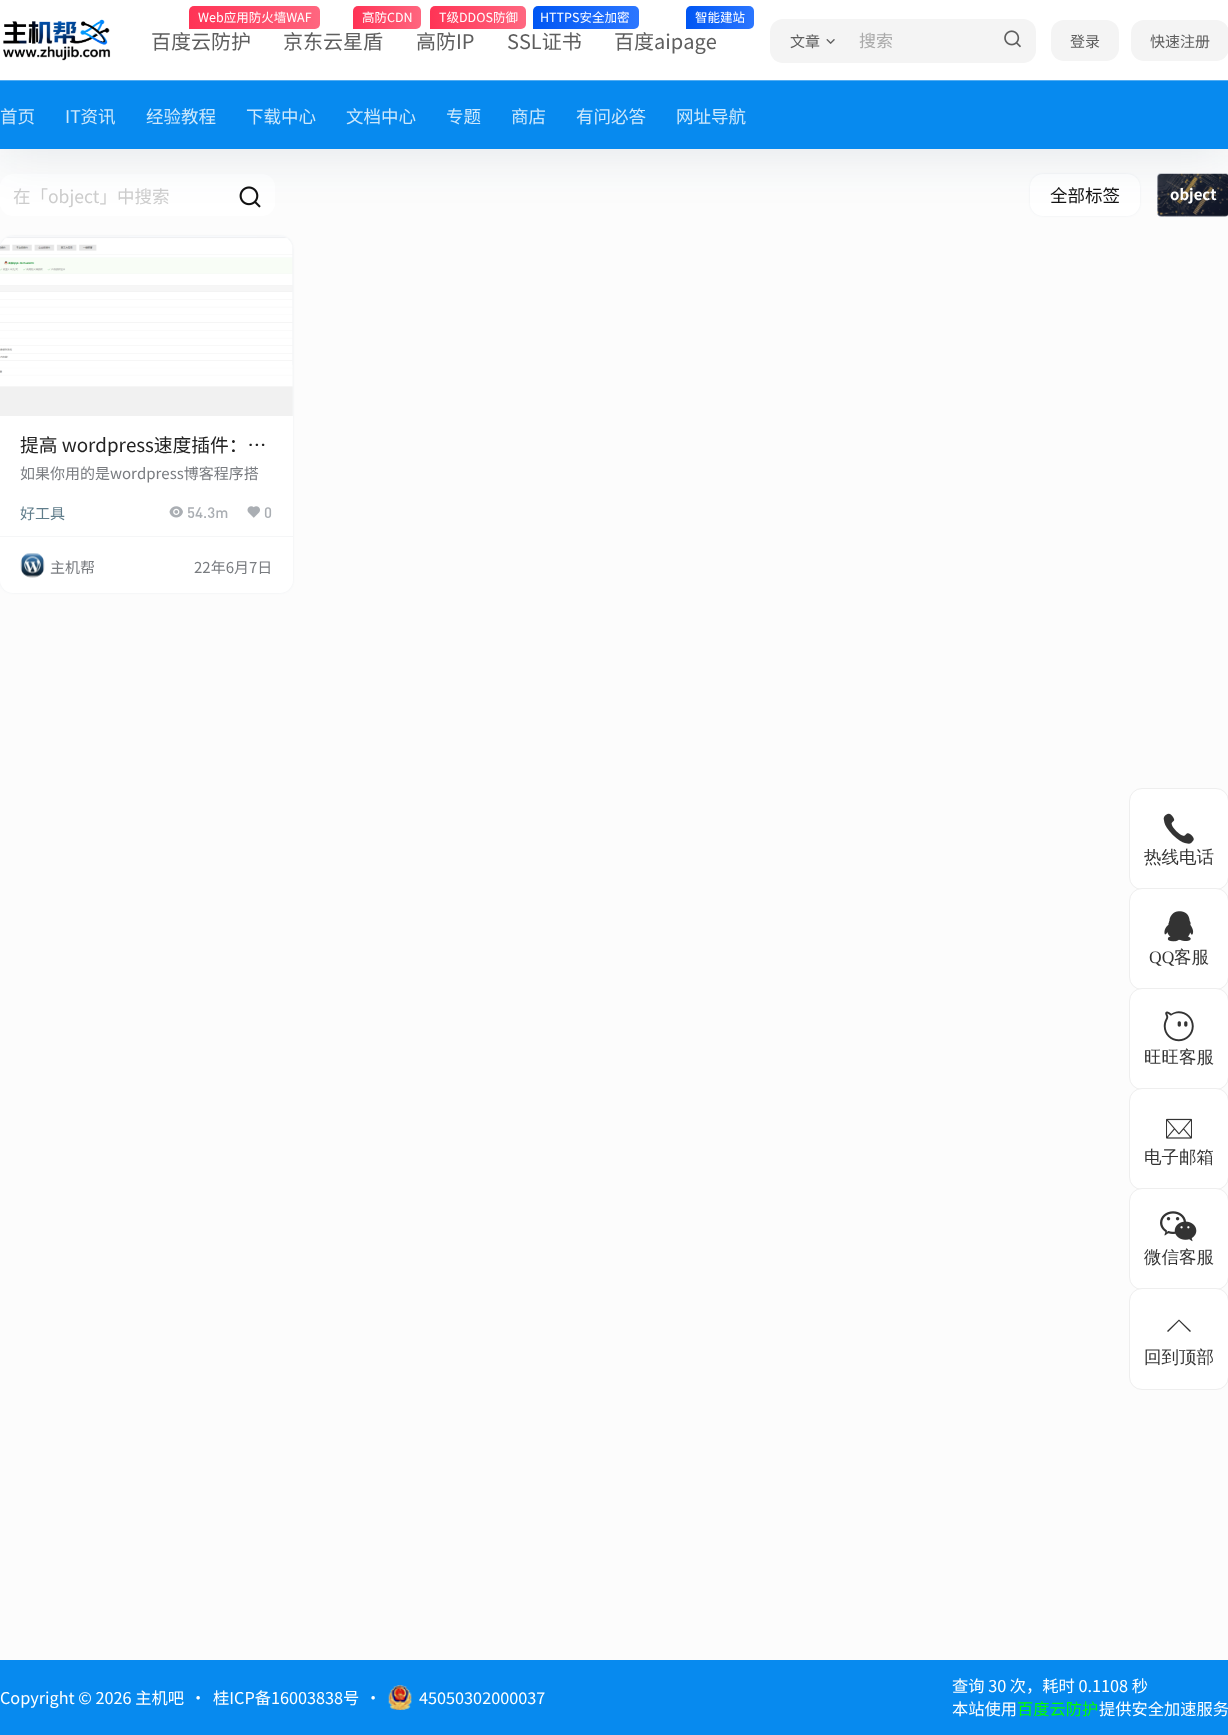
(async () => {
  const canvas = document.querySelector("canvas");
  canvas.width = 1228;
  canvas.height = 1735;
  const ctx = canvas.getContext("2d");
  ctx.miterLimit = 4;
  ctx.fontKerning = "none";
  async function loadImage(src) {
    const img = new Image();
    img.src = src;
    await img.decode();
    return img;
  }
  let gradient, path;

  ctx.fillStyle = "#fcfcfc";
  ctx.fillRect(0, 0, 1228, 1735);
  ctx.fillStyle = "#ffffff";
  ctx.beginPath();
  ctx.roundRect(0, 174, 275, 42, 13);
  ctx.fill();
  ctx.drawImage(await loadImage("img/4.png"), 239, 186, 22, 22);
  ctx.fillStyle = "rgba(98, 124, 153, 0.1)";
  ctx.filter = "blur(1px)";
  ctx.beginPath();
  ctx.roundRect(1030, 174, 110, 42, 13);
  ctx.fill();
  ctx.filter = "none";
  ctx.fillStyle = "#ffffff";
  ctx.beginPath();
  ctx.roundRect(1030, 174, 110, 42, 13);
  ctx.fill();
  ctx.drawImage(await loadImage("img/5.png"), 1157, 173, 71, 44);
  ctx.fillStyle = "rgba(0, 0, 0, 0.26)";
  ctx.beginPath();
  ctx.roundRect(1158, 174, 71, 42, 4);
  ctx.fill();
  ctx.fillStyle = "rgba(17, 58, 93, 0.1)";
  ctx.filter = "blur(25px)";
  ctx.beginPath();
  ctx.rect(0, 6, 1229, 149);
  ctx.fill();
  ctx.filter = "none";
  ctx.fillStyle = "#ffffff";
  ctx.fillRect(0, 0, 1228, 80);
  ctx.drawImage(await loadImage("img/1.png"), 3, 19, 108, 42);
  gradient = ctx.createLinearGradient(189, 17, 321, 17);
  gradient.addColorStop(0, "#ff3355");
  gradient.addColorStop(1, "#ff6780");
  ctx.fillStyle = gradient;
  ctx.beginPath();
  ctx.roundRect(189, 6, 131, 23, [5, 5, 5, 0]);
  ctx.fill();
  gradient = ctx.createLinearGradient(353, 17, 422, 17);
  gradient.addColorStop(0, "#ff3355");
  gradient.addColorStop(1, "#ff6780");
  ctx.fillStyle = gradient;
  ctx.beginPath();
  ctx.roundRect(353, 6, 68, 23, [5, 5, 5, 0]);
  ctx.fill();
  gradient = ctx.createLinearGradient(429, 17, 526, 17);
  gradient.addColorStop(0, "#ff3355");
  gradient.addColorStop(1, "#ff6780");
  ctx.fillStyle = gradient;
  ctx.beginPath();
  ctx.roundRect(430, 6, 96, 23, [5, 5, 5, 0]);
  ctx.fill();
  gradient = ctx.createLinearGradient(532, 17, 638, 17);
  gradient.addColorStop(0, "#0056f3");
  gradient.addColorStop(1, "#2b76ff");
  ctx.fillStyle = gradient;
  ctx.beginPath();
  ctx.roundRect(533, 6, 106, 23, [5, 5, 5, 0]);
  ctx.fill();
  gradient = ctx.createLinearGradient(686, 17, 754, 17);
  gradient.addColorStop(0, "#0056f3");
  gradient.addColorStop(1, "#2b76ff");
  ctx.fillStyle = gradient;
  ctx.beginPath();
  ctx.roundRect(686, 6, 68, 23, [5, 5, 5, 0]);
  ctx.fill();
  ctx.fillStyle = "#f4f4f4";
  ctx.beginPath();
  ctx.roundRect(770, 19, 266, 44, 13);
  ctx.fill();
  ctx.drawImage(await loadImage("img/2.png"), 826, 39, 9, 5);
  ctx.drawImage(await loadImage("img/3.png"), 1004, 30, 17, 18);
  ctx.beginPath();
  ctx.roundRect(1051, 20, 68, 41, 13);
  ctx.fill();
  ctx.beginPath();
  ctx.roundRect(1131, 20, 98, 41, 13);
  ctx.fill();
  ctx.fillStyle = "#078aef";
  ctx.fillRect(0, 81, 1228, 68);
  ctx.fillStyle = "#53adf2";
  ctx.fillRect(0, 80, 1228, 1);
  ctx.fillStyle = "rgba(98, 124, 153, 0.1)";
  ctx.filter = "blur(1px)";
  ctx.beginPath();
  ctx.roundRect(0, 236, 293, 357, 13);
  ctx.fill();
  ctx.filter = "none";
  ctx.fillStyle = "#ffffff";
  ctx.beginPath();
  ctx.roundRect(0, 236, 293, 357, 13);
  ctx.fill();
  ctx.fillStyle = "#f5f6f7";
  ctx.beginPath();
  ctx.roundRect(0, 236, 293, 180, [13, 13, 0, 0]);
  ctx.fill();
  ctx.drawImage(await loadImage("img/6.png"), 0, 236, 293, 180);
  ctx.drawImage(await loadImage("img/7.png"), 169, 506, 14, 12);
  ctx.drawImage(await loadImage("img/8.png"), 247, 506, 13, 12);
  ctx.fillRect(0, 536, 293, 1);
  ctx.fillStyle = "#eeeeee";
  ctx.beginPath();
  ctx.arc(32.5, 565.5, 12.5, 0, Math.PI * 2);
  ctx.fill();
  ctx.drawImage(await loadImage("img/9.png"), 21, 553, 23, 25);
  ctx.fillStyle = "#ffffff";
  ctx.beginPath();
  ctx.roundRect(1129.5, 788.5, 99, 101, 12.5);
  ctx.fill();
  ctx.strokeStyle = "#eeeeee";
  ctx.stroke();
  ctx.drawImage(await loadImage("img/10.png"), 1163, 813, 31, 31);
  ctx.beginPath();
  ctx.roundRect(1129.5, 888.5, 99, 101, 12.5);
  ctx.fill();
  ctx.stroke();
  ctx.drawImage(await loadImage("img/11.png"), 1164, 911, 30, 31);
  ctx.beginPath();
  ctx.roundRect(1129.5, 988.5, 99, 101, 12.5);
  ctx.fill();
  ctx.stroke();
  ctx.drawImage(await loadImage("img/12.png"), 1163, 1011, 31, 31);
  ctx.beginPath();
  ctx.roundRect(1129.5, 1088.5, 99, 101, 12.5);
  ctx.fill();
  ctx.stroke();
  ctx.drawImage(await loadImage("img/13.png"), 1166, 1118, 26, 21);
  ctx.beginPath();
  ctx.roundRect(1129.5, 1188.5, 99, 101, 12.5);
  ctx.fill();
  ctx.stroke();
  ctx.drawImage(await loadImage("img/14.png"), 1160, 1211, 37, 31);
  ctx.beginPath();
  ctx.roundRect(1129.5, 1288.5, 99, 101, 12.5);
  ctx.fill();
  ctx.stroke();
  ctx.fillStyle = "#333333";
  path = new Path2D("M1191 1331L1179 1319.5L1167 1331L1168 1332L1179 1321L1190 1332Z");
  ctx.fill(path);
  ctx.fillStyle = "#078aef";
  ctx.fillRect(0, 1660, 1228, 75);
  ctx.drawImage(await loadImage("img/15.png"), 388, 1685, 24, 25);
  ctx.font = "12.5px Noto Sans CJK SC";
  ctx.fillStyle = "#ffffff";
  ctx.fillText("Web应用防火墙WAF", 198, 22);
  ctx.font = "20px Noto Sans CJK SC";
  ctx.fillStyle = "#5e5e5e";
  ctx.fillText("百度云防护", 151, 49);
  ctx.font = "12.5px Noto Sans CJK SC";
  ctx.fillStyle = "#ffffff";
  ctx.fillText("高防CDN", 362, 22);
  ctx.font = "20px Noto Sans CJK SC";
  ctx.fillStyle = "#5e5e5e";
  ctx.fillText("京东云星盾", 283, 49);
  ctx.font = "12.5px Noto Sans CJK SC";
  ctx.fillStyle = "#ffffff";
  ctx.fillText("T级DDOS防御", 439, 22);
  ctx.font = "20px Noto Sans CJK SC";
  ctx.fillStyle = "#5e5e5e";
  ctx.fillText("高防IP", 416, 49);
  ctx.font = "12.5px Noto Sans CJK SC";
  ctx.fillStyle = "#ffffff";
  ctx.fillText("HTTPS安全加密", 540, 22);
  ctx.font = "20px Noto Sans CJK SC";
  ctx.fillStyle = "#5e5e5e";
  ctx.fillText("SSL证书", 507, 49);
  ctx.font = "12.5px Noto Sans CJK SC";
  ctx.fillStyle = "#ffffff";
  ctx.fillText("智能建站", 695, 22);
  ctx.font = "20px Noto Sans CJK SC";
  ctx.fillStyle = "#5e5e5e";
  ctx.fillText("百度aipage", 614, 49);
  ctx.font = "15px Noto Sans CJK SC";
  ctx.fillText("文章", 790, 47);
  ctx.font = "17px Noto Sans CJK SC";
  ctx.fillStyle = "#a9a9a9";
  ctx.fillText("搜索", 859, 47);
  ctx.font = "15px Noto Sans CJK SC";
  ctx.fillStyle = "#5e5e5e";
  ctx.fillText("登录", 1070, 47);
  ctx.fillText("快速注册", 1150, 47);
  ctx.font = "17.5px Noto Sans CJK SC";
  ctx.fillStyle = "#cde8fc";
  for (const [text, x, y] of [
    ["首页", 0, 123],
    ["IT资讯", 65, 123],
    ["经验教程", 146, 123],
    ["下载中心", 246, 123],
    ["文档中心", 346, 123],
    ["专题", 446, 123],
    ["商店", 511, 123],
    ["有问必答", 576, 123],
    ["网址导航", 676, 123],
  ]) {
    ctx.fillText(text, x, y);
  }
  ctx.fillStyle = "#cccccc";
  ctx.fillText("在「object」中搜索", 13, 203);
  ctx.fillStyle = "#121212";
  ctx.fillText("全部标签", 1050, 202);
  ctx.font = "bold 15px Noto Sans CJK SC";
  ctx.fillStyle = "#ffffff";
  ctx.fillText("object", 1170, 200);
  ctx.save();
  ctx.beginPath();
  ctx.rect(20, 430, 253, 26);
  ctx.clip();
  ctx.font = "18.75px Noto Sans CJK SC";
  ctx.fillStyle = "#222222";
  ctx.fillText("提高 wordpress速度插件：…", 20, 452);
  ctx.restore();
  ctx.font = "15px Noto Sans CJK SC";
  ctx.fillStyle = "#797c80";
  ctx.fillText("如果你用的是wordpress博客程序搭", 20, 479);
  ctx.fillStyle = "#607d8b";
  ctx.fillText("好工具", 20, 519);
  ctx.font = "500 15px DIN";
  ctx.fillStyle = "#aaaeb3";
  ctx.fillText("54.3m", 187, 518);
  ctx.fillText("0", 264, 518);
  ctx.save();
  ctx.beginPath();
  ctx.rect(50, 556, 45, 18);
  ctx.clip();
  ctx.font = "15px Noto Sans CJK SC";
  ctx.fillStyle = "#797c80";
  ctx.fillText("主机帮", 50, 573);
  ctx.restore();
  ctx.save();
  ctx.beginPath();
  ctx.rect(194, 556, 79, 18);
  ctx.clip();
  ctx.font = "15px Noto Sans CJK SC";
  ctx.fillStyle = "#797c80";
  ctx.fillText("22年6月7日", 194, 573);
  ctx.restore();
  ctx.font = "500 17.5px WenQuanYi Zen Hei";
  ctx.fillStyle = "#333333";
  ctx.fillText("热线电话", 1144, 863);
  ctx.font = "17.5px Liberation Serif";
  ctx.fillText("QQ", 1149, 963);
  ctx.font = "500 17.5px WenQuanYi Zen Hei";
  for (const [text, x, y] of [
    ["客服", 1174, 963],
    ["旺旺客服", 1144, 1063],
    ["电子邮箱", 1144, 1163],
    ["微信客服", 1144, 1263],
    ["回到顶部", 1144, 1363],
  ]) {
    ctx.fillText(text, x, y);
  }
  ctx.font = "16.25px Noto Sans CJK SC";
  ctx.fillStyle = "#ffffff";
  for (const [text, x, y] of [
    ["Copyright © 2026 主机吧", 0, 1704],
    ["・", 190, 1704],
    ["桂ICP备16003838号", 213, 1704],
    ["・", 365, 1704],
    ["45050302000037", 419, 1704],
    ["查询 30 次，耗时 0.1108 秒", 952, 1692],
    ["本站使用", 952, 1715],
  ]) {
    ctx.fillText(text, x, y);
  }
  ctx.fillStyle = "#00ff00";
  ctx.fillText("百度云防护", 1017, 1715);
  ctx.fillStyle = "#ffffff";
  ctx.fillText("提供安全加速服务", 1099, 1715);
})();
